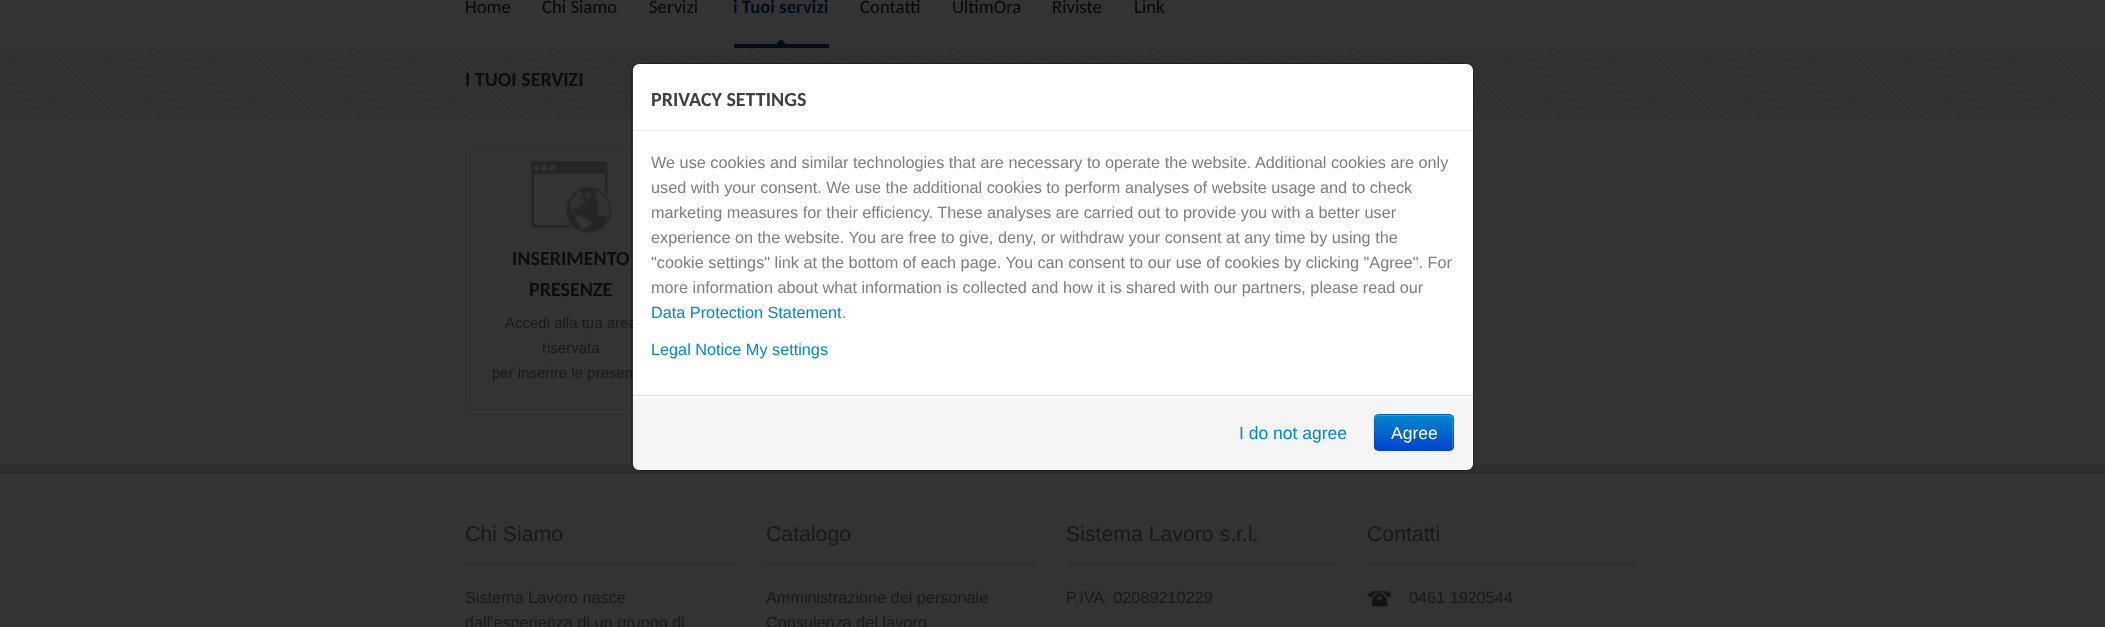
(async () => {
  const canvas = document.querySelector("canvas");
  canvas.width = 2105;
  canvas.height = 627;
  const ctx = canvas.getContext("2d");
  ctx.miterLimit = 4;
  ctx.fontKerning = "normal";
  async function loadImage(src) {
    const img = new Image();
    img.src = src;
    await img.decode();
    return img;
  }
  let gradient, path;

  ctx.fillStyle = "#333333";
  ctx.fillRect(0, 0, 2105, 627);
  ctx.fillStyle = "#2e2e2e";
  ctx.fillRect(0, 48, 2105, 1);
  ctx.fillStyle = "#030d1a";
  ctx.fillRect(734, 44, 95, 4);
  path = new Path2D("M786 44H776L781 39Z");
  ctx.fill(path);
  ctx.drawImage(await loadImage("img/1.png"), 0, 48, 2105, 69);
  ctx.beginPath();
  ctx.roundRect(465.5, 148.5, 210, 261, 4.5);
  ctx.strokeStyle = "#2e2e2e";
  ctx.stroke();
  ctx.drawImage(await loadImage("img/2.png"), 531, 161, 81, 72);
  for (const [x, y, w, h, color] of [
    [0, 464, 2105, 10, "#2e2e2e"],
    [465, 561, 270, 4, "#2e2e2e"],
    [766, 561, 270, 4, "#2e2e2e"],
    [1066, 561, 270, 4, "#2e2e2e"],
    [1368, 561, 270, 4, "#2e2e2e"],
  ]) {
    ctx.fillStyle = color;
    ctx.fillRect(x, y, w, h);
  }
  ctx.drawImage(await loadImage("img/3.png"), 1367, 591, 25, 16);
  ctx.font = "18.75px Carlito";
  ctx.fillStyle = "#060606";
  for (const [text, x, y] of [
    ["Home", 465, 13],
    ["Chi Siamo", 542, 13],
    ["Servizi", 649, 13],
  ]) {
    ctx.fillText(text, x, y);
  }
  ctx.font = "bold 18.75px Carlito";
  ctx.fillStyle = "#030d1a";
  ctx.fillText("i Tuoi servizi", 733, 13);
  ctx.font = "18.75px Carlito";
  ctx.fillStyle = "#060606";
  for (const [text, x, y] of [
    ["Contatti", 860, 13],
    ["UltimOra", 952, 13],
    ["Riviste", 1052, 13],
    ["Link", 1134, 13],
  ]) {
    ctx.fillText(text, x, y);
  }
  ctx.font = "bold 20px Carlito";
  ctx.fillStyle = "#0d0d0d";
  for (const [text, x, y] of [
    ["I TUOI SERVIZI", 465, 86],
    ["INSERIMENTO", 512, 265],
    ["PRESENZE", 529, 296],
  ]) {
    ctx.fillText(text, x, y);
  }
  ctx.font = "15px Liberation Sans";
  ctx.fillStyle = "#191919";
  for (const [text, x, y] of [
    ["Accedi alla tua area", 505, 328],
    ["riservata", 542, 353],
    ["per inserire le presen", 492, 378],
  ]) {
    ctx.fillText(text, x, y);
  }
  ctx.font = "21.25px Liberation Sans";
  ctx.fillText("Chi Siamo", 465, 541);
  ctx.font = "16.25px Liberation Sans";
  ctx.fillText("Sistema Lavoro nasce", 465, 603);
  ctx.fillText("dall'esperienza di un gruppo di", 465, 628);
  ctx.font = "21.25px Liberation Sans";
  ctx.fillText("Catalogo", 766, 541);
  ctx.font = "16.25px Liberation Sans";
  ctx.fillText("Amministrazione del personale", 766, 603);
  ctx.fillText("Consulenza del lavoro", 766, 628);
  ctx.font = "21.25px Liberation Sans";
  ctx.fillText("Sistema Lavoro s.r.l.", 1066, 541);
  ctx.font = "16.25px Liberation Sans";
  ctx.fillText("P.IVA: 02089210229", 1066, 603);
  ctx.font = "21.25px Liberation Sans";
  ctx.fillText("Contatti", 1367, 541);
  ctx.font = "16.25px Liberation Sans";
  ctx.fillText("0461 1920544", 1409, 603);
  ctx.fillStyle = "#ffffff";
  ctx.beginPath();
  ctx.roundRect(633, 64, 840, 406, 6);
  ctx.fill();
  ctx.beginPath();
  ctx.roundRect(631.5, 63.5, 842, 407, 7.5);
  ctx.strokeStyle = "rgba(0, 0, 0, 0.3)";
  ctx.stroke();
  ctx.fillStyle = "#eeeeee";
  ctx.fillRect(633, 130, 840, 1);
  ctx.font = "bold 20px Carlito";
  ctx.fillStyle = "#404040";
  ctx.fillText("PRIVACY SETTINGS", 651, 106);
  ctx.font = "16.25px Liberation Sans";
  ctx.fillStyle = "#7d7d7d";
  for (const [text, x, y] of [
    ["We use cookies and similar technologies that are necessary to operate the website. Additional cookies are only", 651, 168],
    ["used with your consent. We use the additional cookies to perform analyses of website usage and to check", 651, 193],
    ["marketing measures for their efficiency. These analyses are carried out to provide you with a better user", 651, 218],
    ["experience on the website. You are free to give, deny, or withdraw your consent at any time by using the", 651, 243],
    ["\"cookie settings\" link at the bottom of each page. You can consent to our use of cookies by clicking \"Agree\". For", 651, 268],
    ["more information about what information is collected and how it is shared with our partners, please read our", 651, 293],
  ]) {
    ctx.fillText(text, x, y);
  }
  ctx.fillStyle = "#0088cc";
  ctx.fillText("Data Protection Statement", 651, 318);
  ctx.fillStyle = "#7d7d7d";
  ctx.fillText(".", 842, 318);
  ctx.fillStyle = "#0088cc";
  ctx.fillText("Legal Notice My settings", 651, 355);
  ctx.fillStyle = "#f5f5f5";
  ctx.beginPath();
  ctx.roundRect(633, 395, 840, 75, [0, 0, 8, 8]);
  ctx.fill();
  ctx.fillStyle = "#ffffff";
  path = new Path2D("M633 396V398H1472V464V467C1472 465 1473 464 1473 462V396Z");
  ctx.fill(path);
  ctx.fillStyle = "#dddddd";
  ctx.fillRect(633, 395, 840, 1);
  ctx.font = "17.5px Liberation Sans";
  ctx.fillStyle = "#0088cc";
  ctx.fillText("I do not agree", 1239, 439);
  ctx.fillStyle = "rgba(0, 0, 0, 0.05)";
  ctx.filter = "blur(1px)";
  ctx.beginPath();
  ctx.roundRect(1374, 415, 80, 38, 5);
  ctx.fill();
  ctx.filter = "none";
  ctx.fillStyle = "#006dcc";
  ctx.beginPath();
  ctx.roundRect(1374, 414, 80, 37, 5);
  ctx.fill();
  ctx.save();
  ctx.beginPath();
  ctx.roundRect(1374, 414, 80, 37, 5);
  ctx.clip();
  gradient = ctx.createLinearGradient(1414, 415, 1414, 450);
  gradient.addColorStop(0, "#0088cc");
  gradient.addColorStop(1, "#0044cc");
  ctx.fillStyle = gradient;
  ctx.fillRect(1374, 415, 80, 35);
  ctx.restore();
  ctx.fillStyle = "rgba(255, 255, 255, 0.2)";
  path = new Path2D("M1379 416H1437C1454 416 1452 414 1452 429V449C1453 448 1453 447 1453 446V419C1453 417 1451 415 1449 415H1379C1377 415 1375 417 1375 419V420C1375 418 1377 416 1379 416Z");
  ctx.fill(path);
  path = new Path2D("M1452 449.5L1449 450.5H1378.5L1375.5 449.5");
  ctx.strokeStyle = "rgba(0, 0, 0, 0.25)";
  ctx.lineWidth = 1.2;
  ctx.stroke(path);
  path = new Path2D("M1375.5 449.5C1373.5 447.5 1374.5 444 1374.5 441.5V432.5C1374.5 413 1371 414.5 1390.5 414.5H1437C1456.5 414.5 1453 413 1453 432.5V441.5C1453 444 1454 447.5 1452 449.5");
  ctx.strokeStyle = "rgba(0, 0, 0, 0.1)";
  ctx.stroke(path);
  ctx.fillStyle = "#ffffff";
  ctx.fillText("Agree", 1391, 439);
})();
